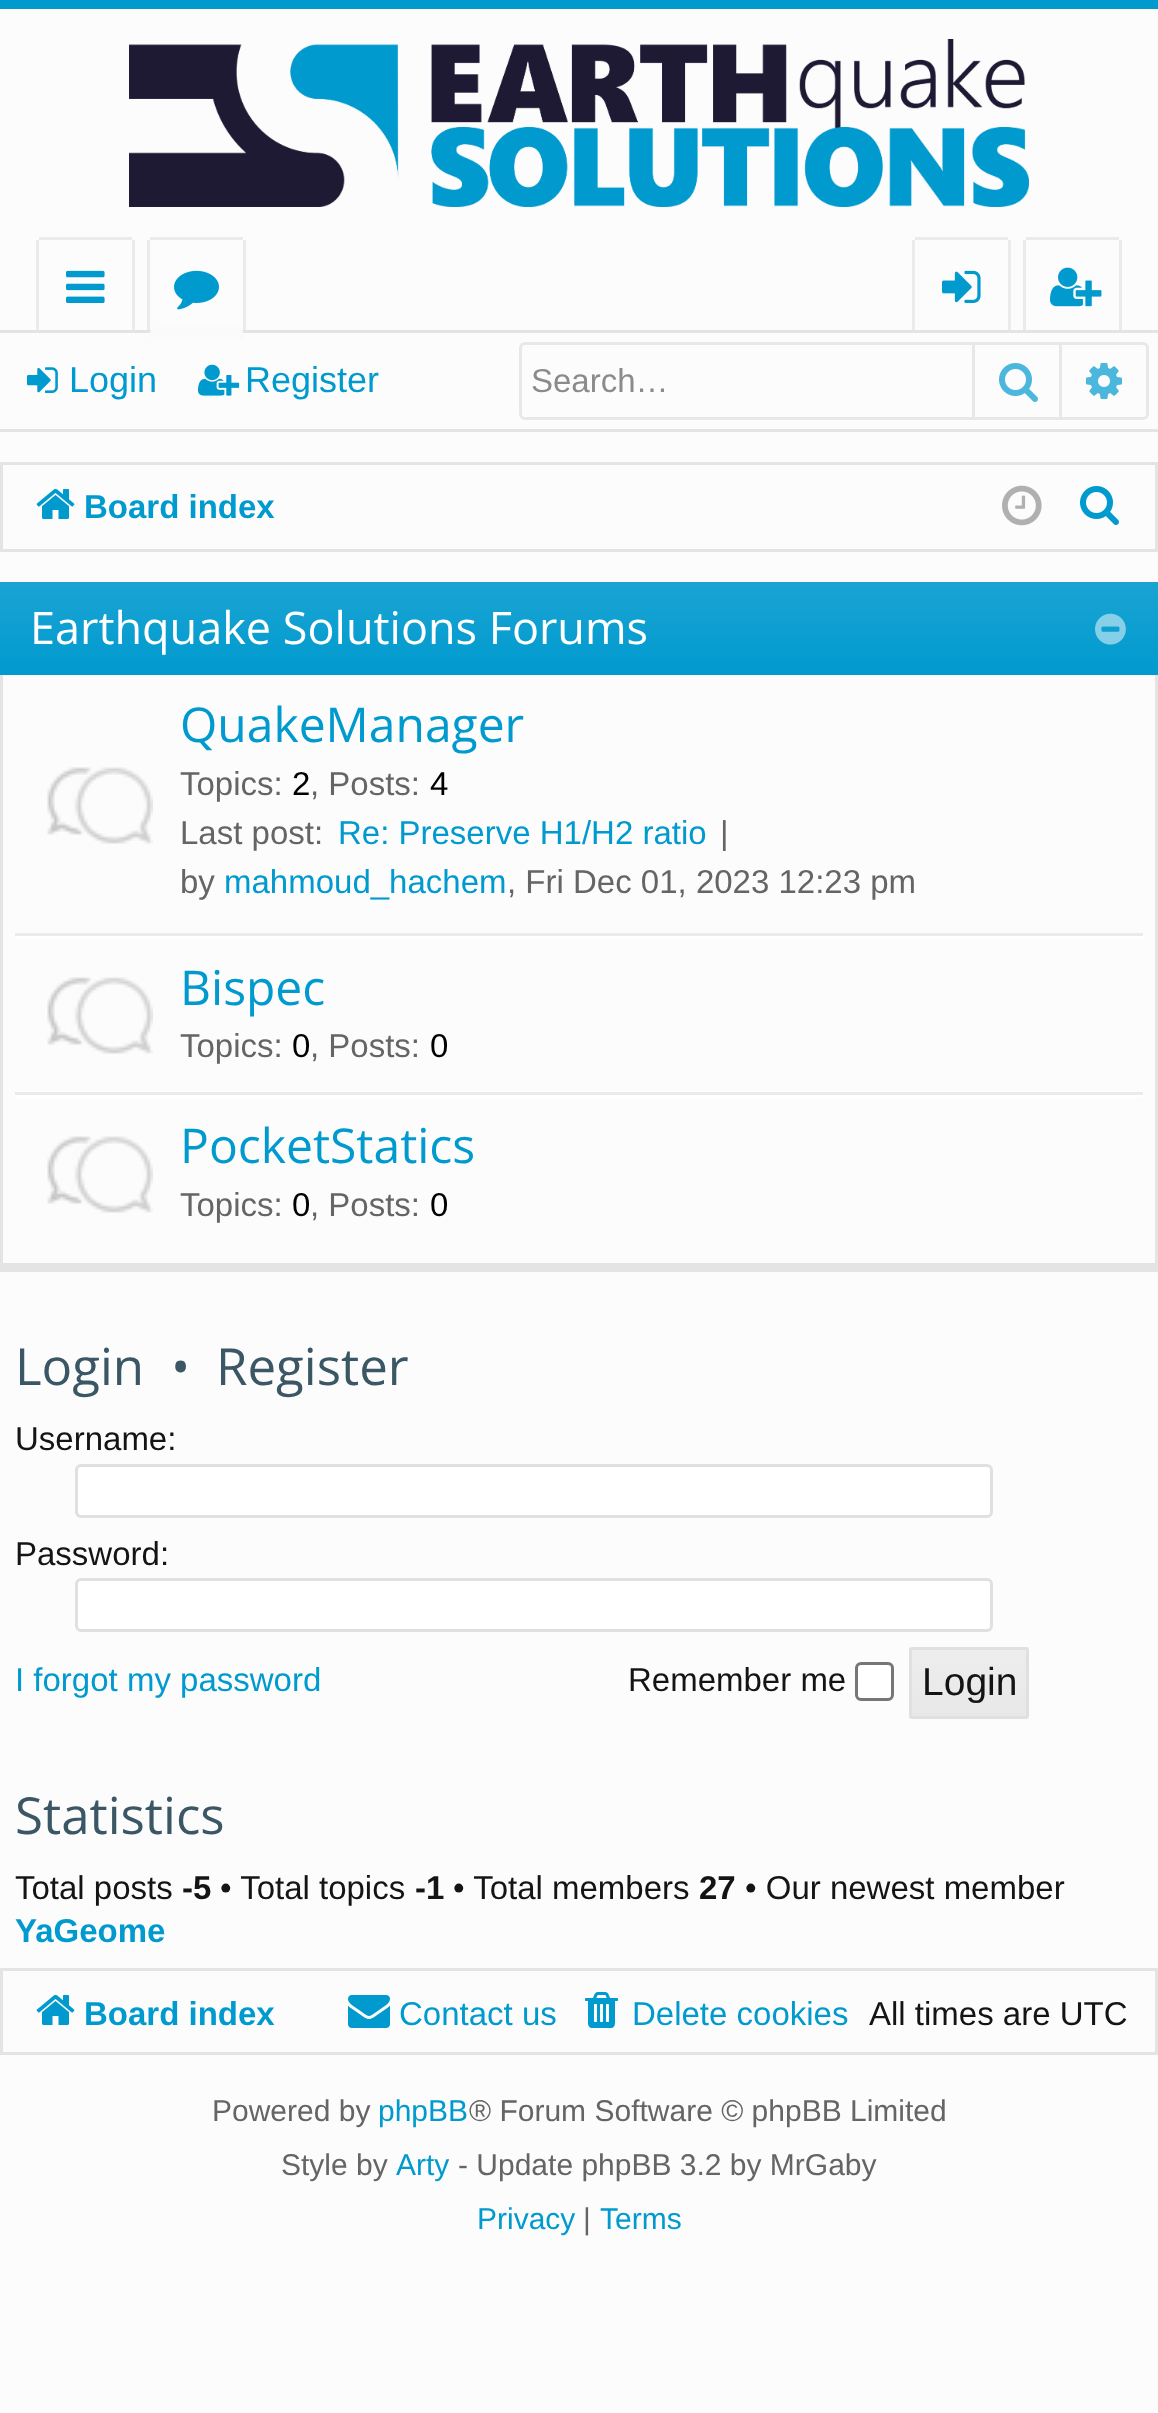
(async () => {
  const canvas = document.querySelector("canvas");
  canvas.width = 1158;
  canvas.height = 2413;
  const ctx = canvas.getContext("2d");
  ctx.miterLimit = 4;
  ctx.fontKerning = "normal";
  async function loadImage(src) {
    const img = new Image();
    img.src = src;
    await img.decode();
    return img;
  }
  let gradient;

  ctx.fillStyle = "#fcfcfc";
  ctx.fillRect(0, 0, 1158, 2413);
  ctx.fillStyle = "#009ace";
  ctx.fillRect(0, 0, 1158, 9);
  ctx.drawImage(await loadImage("img/1.png"), 129, 39, 900, 168);
  for (const [x, y, w, h, color] of [
    [39, 237, 93, 3, "#ebebeb"],
    [132, 240, 3, 93, "#ebebeb"],
    [36, 240, 3, 93, "#ebebeb"],
  ]) {
    ctx.fillStyle = color;
    ctx.fillRect(x, y, w, h);
  }
  ctx.drawImage(await loadImage("img/2.png"), 66, 270, 39, 33);
  for (const [x, y, w, h, color] of [
    [150, 237, 93, 3, "#ebebeb"],
    [243, 240, 3, 93, "#ebebeb"],
    [147, 240, 3, 93, "#ebebeb"],
  ]) {
    ctx.fillStyle = color;
    ctx.fillRect(x, y, w, h);
  }
  ctx.drawImage(await loadImage("img/3.png"), 174, 270, 45, 40);
  for (const [x, y, w, h, color] of [
    [1008, 240, 3, 93, "#ebebeb"],
    [912, 240, 3, 93, "#ebebeb"],
    [1119, 240, 3, 93, "#ebebeb"],
    [1023, 240, 3, 93, "#ebebeb"],
    [0, 330, 1158, 3, "#e4e4e4"],
  ]) {
    ctx.fillStyle = color;
    ctx.fillRect(x, y, w, h);
  }
  ctx.fillStyle = "#fafafa";
  ctx.beginPath();
  ctx.roundRect(150, 327, 93, 12, [6, 6, 0, 0]);
  ctx.fill();
  ctx.fillStyle = "#ebebeb";
  ctx.fillRect(915, 237, 93, 3);
  ctx.drawImage(await loadImage("img/4.png"), 942, 270, 39, 33);
  ctx.fillRect(1026, 237, 93, 3);
  ctx.drawImage(await loadImage("img/5.png"), 1050, 267, 52, 40);
  ctx.fillStyle = "#e4e4e4";
  ctx.fillRect(0, 429, 1158, 3);
  ctx.drawImage(await loadImage("img/6.png"), 27, 367, 31, 26);
  ctx.drawImage(await loadImage("img/7.png"), 198, 364, 42, 32);
  ctx.beginPath();
  ctx.roundRect(520.5, 343.5, 627, 75, 4.5);
  ctx.strokeStyle = "#e8e8e8";
  ctx.lineWidth = 3;
  ctx.stroke();
  ctx.fillStyle = "#e8e8e8";
  ctx.fillRect(1059, 345, 3, 72);
  ctx.fillRect(972, 345, 3, 72);
  ctx.drawImage(await loadImage("img/8.png"), 999, 363, 39, 39);
  ctx.drawImage(await loadImage("img/9.png"), 1086, 363, 36, 36);
  ctx.strokeStyle = "#e4e4e4";
  ctx.strokeRect(1.5, 463.5, 1155, 87);
  ctx.drawImage(await loadImage("img/10.png"), 36, 488, 39, 31);
  ctx.drawImage(await loadImage("img/11.png"), 1002, 485, 40, 41);
  ctx.drawImage(await loadImage("img/12.png"), 1080, 486, 39, 39);
  for (const [x, y, w, h, color] of [
    [1155, 675, 3, 588, "#e4e4e4"],
    [3, 1263, 1155, 9, "#e4e4e4"],
    [0, 675, 3, 597, "#e4e4e4"],
  ]) {
    ctx.fillStyle = color;
    ctx.fillRect(x, y, w, h);
  }
  gradient = ctx.createLinearGradient(579, 582, 579, 675);
  gradient.addColorStop(0, "#1aa4d3");
  gradient.addColorStop(1, "#009ace");
  ctx.fillStyle = gradient;
  ctx.fillRect(0, 582, 1158, 93);
  ctx.drawImage(await loadImage("img/13.png"), 1095, 613, 31, 32);
  ctx.fillStyle = "#ebebeb";
  ctx.fillRect(15, 933, 1128, 3);
  ctx.drawImage(await loadImage("img/14.png"), 47, 767, 106, 77);
  ctx.fillStyle = "#ffffff";
  ctx.fillRect(15, 936, 1128, 3);
  ctx.fillStyle = "#ebebeb";
  ctx.fillRect(15, 1092, 1128, 3);
  ctx.drawImage(await loadImage("img/14.png"), 47, 977, 106, 77);
  ctx.fillStyle = "#ffffff";
  ctx.fillRect(15, 1095, 1128, 3);
  ctx.drawImage(await loadImage("img/14.png"), 47, 1136, 106, 77);
  ctx.beginPath();
  ctx.roundRect(76.5, 1465.5, 915, 51, 4.5);
  ctx.fill();
  ctx.strokeStyle = "#e0e0e0";
  ctx.stroke();
  ctx.beginPath();
  ctx.roundRect(76.5, 1579.5, 915, 51, 4.5);
  ctx.fill();
  ctx.stroke();
  ctx.beginPath();
  ctx.roundRect(856.5, 1663.5, 36, 36, 4.5);
  ctx.fill();
  ctx.strokeStyle = "#767676";
  ctx.stroke();
  gradient = ctx.createLinearGradient(969, 1650, 969, 1716);
  gradient.addColorStop(0, "#ededed");
  gradient.addColorStop(1, "#e8e8e8");
  ctx.fillStyle = gradient;
  ctx.fillRect(912, 1650, 114, 66);
  ctx.beginPath();
  ctx.roundRect(910.5, 1648.5, 117, 69, 1.5);
  ctx.strokeStyle = "#e0e0e0";
  ctx.stroke();
  ctx.strokeStyle = "#e4e4e4";
  ctx.strokeRect(1.5, 1969.5, 1155, 84);
  ctx.drawImage(await loadImage("img/10.png"), 36, 1994, 39, 31);
  ctx.drawImage(await loadImage("img/15.png"), 348, 1995, 42, 33);
  ctx.drawImage(await loadImage("img/16.png"), 585, 1992, 33, 36);
  ctx.font = "36px Liberation Sans";
  ctx.fillStyle = "#009ace";
  ctx.fillText("Login", 69, 392);
  ctx.fillText("Register", 245, 392);
  ctx.font = "33px Liberation Sans";
  ctx.fillStyle = "#8b8b8b";
  ctx.fillText("Search…", 531, 392);
  ctx.font = "bold 33px Liberation Sans";
  ctx.fillStyle = "#009ace";
  ctx.fillText("Board index", 84, 518);
  ctx.font = "45px Open Sans";
  ctx.fillStyle = "#ffffff";
  ctx.fillText("Earthquake Solutions Forums", 30, 644);
  ctx.font = "48px Open Sans";
  ctx.fillStyle = "#009ace";
  ctx.fillText("QuakeManager", 180, 742);
  ctx.font = "33px Liberation Sans";
  ctx.fillStyle = "#656565";
  ctx.fillText("Topics:", 180, 795);
  ctx.fillStyle = "#000000";
  ctx.fillText("2", 292, 795);
  ctx.fillStyle = "#656565";
  ctx.fillText(", Posts:", 310, 795);
  ctx.fillStyle = "#000000";
  ctx.fillText("4", 430, 795);
  ctx.fillStyle = "#656565";
  ctx.fillText("Last post:", 180, 844);
  ctx.fillStyle = "#009ace";
  ctx.fillText("Re: Preserve H1/H2 ratio", 338, 844);
  ctx.fillStyle = "#656565";
  ctx.fillText("|", 720, 844);
  ctx.fillText("by", 180, 893);
  ctx.fillStyle = "#009ace";
  ctx.fillText("mahmoud_hachem", 224, 893);
  ctx.fillStyle = "#656565";
  ctx.fillText(", Fri Dec 01, 2023 12:23 pm", 507, 893);
  ctx.font = "48px Open Sans";
  ctx.fillStyle = "#009ace";
  ctx.fillText("Bispec", 180, 1005);
  ctx.font = "33px Liberation Sans";
  ctx.fillStyle = "#656565";
  ctx.fillText("Topics:", 180, 1057);
  ctx.fillStyle = "#000000";
  ctx.fillText("0", 292, 1057);
  ctx.fillStyle = "#656565";
  ctx.fillText(", Posts:", 310, 1057);
  ctx.fillStyle = "#000000";
  ctx.fillText("0", 430, 1057);
  ctx.font = "48px Open Sans";
  ctx.fillStyle = "#009ace";
  ctx.fillText("PocketStatics", 180, 1163);
  ctx.font = "33px Liberation Sans";
  ctx.fillStyle = "#656565";
  ctx.fillText("Topics:", 180, 1216);
  ctx.fillStyle = "#000000";
  ctx.fillText("0", 292, 1216);
  ctx.fillStyle = "#656565";
  ctx.fillText(", Posts:", 310, 1216);
  ctx.fillStyle = "#000000";
  ctx.fillText("0", 430, 1216);
  ctx.font = "51px Open Sans";
  ctx.fillStyle = "#3b5665";
  for (const [text, x, y] of [
    ["Login", 15, 1385],
    ["•", 171, 1385],
    ["Register", 216, 1385],
  ]) {
    ctx.fillText(text, x, y);
  }
  ctx.font = "33px Liberation Sans";
  ctx.fillStyle = "#141414";
  ctx.fillText("Username:", 15, 1450);
  ctx.fillText("Password:", 15, 1565);
  ctx.fillStyle = "#009ace";
  ctx.fillText("I forgot my password", 15, 1691);
  ctx.fillStyle = "#141414";
  ctx.fillText("Remember me", 628, 1691);
  ctx.font = "39px Liberation Sans";
  ctx.fillText("Login", 922, 1695);
  ctx.font = "51px Open Sans";
  ctx.fillStyle = "#3b5665";
  ctx.fillText("Statistics", 15, 1834);
  ctx.font = "33px Liberation Sans";
  ctx.fillStyle = "#141414";
  ctx.fillText("Total posts", 15, 1899);
  ctx.font = "bold 33px Liberation Sans";
  ctx.fillText("-5", 182, 1899);
  ctx.font = "33px Liberation Sans";
  ctx.fillText("• Total topics", 220, 1899);
  ctx.font = "bold 33px Liberation Sans";
  ctx.fillText("-1", 415, 1899);
  ctx.font = "33px Liberation Sans";
  ctx.fillText("• Total members", 453, 1899);
  ctx.font = "bold 33px Liberation Sans";
  ctx.fillText("27", 699, 1899);
  ctx.font = "33px Liberation Sans";
  ctx.fillText("• Our newest member", 745, 1899);
  ctx.font = "bold 33px Liberation Sans";
  ctx.fillStyle = "#009ace";
  ctx.fillText("YaGeome", 15, 1942);
  ctx.fillText("Board index", 84, 2025);
  ctx.font = "33px Liberation Sans";
  ctx.fillText("Contact us", 399, 2025);
  ctx.fillText("Delete cookies", 632, 2025);
  ctx.fillStyle = "#141414";
  ctx.fillText("All times are UTC", 869, 2025);
  ctx.font = "30px Liberation Sans";
  ctx.fillStyle = "#656565";
  ctx.fillText("Powered by", 212, 2121);
  ctx.fillStyle = "#009ace";
  ctx.fillText("phpBB", 378, 2121);
  ctx.fillStyle = "#656565";
  ctx.fillText("® Forum Software © phpBB Limited", 469, 2121);
  ctx.fillText("Style by", 281, 2175);
  ctx.fillStyle = "#009ace";
  ctx.fillText("Arty", 396, 2175);
  ctx.fillStyle = "#656565";
  ctx.fillText("- Update phpBB 3.2 by MrGaby", 458, 2175);
  ctx.fillStyle = "#009ace";
  ctx.fillText("Privacy", 477, 2229);
  ctx.fillStyle = "#656565";
  ctx.fillText("|", 583, 2229);
  ctx.fillStyle = "#009ace";
  ctx.fillText("Terms", 600, 2229);
})();
